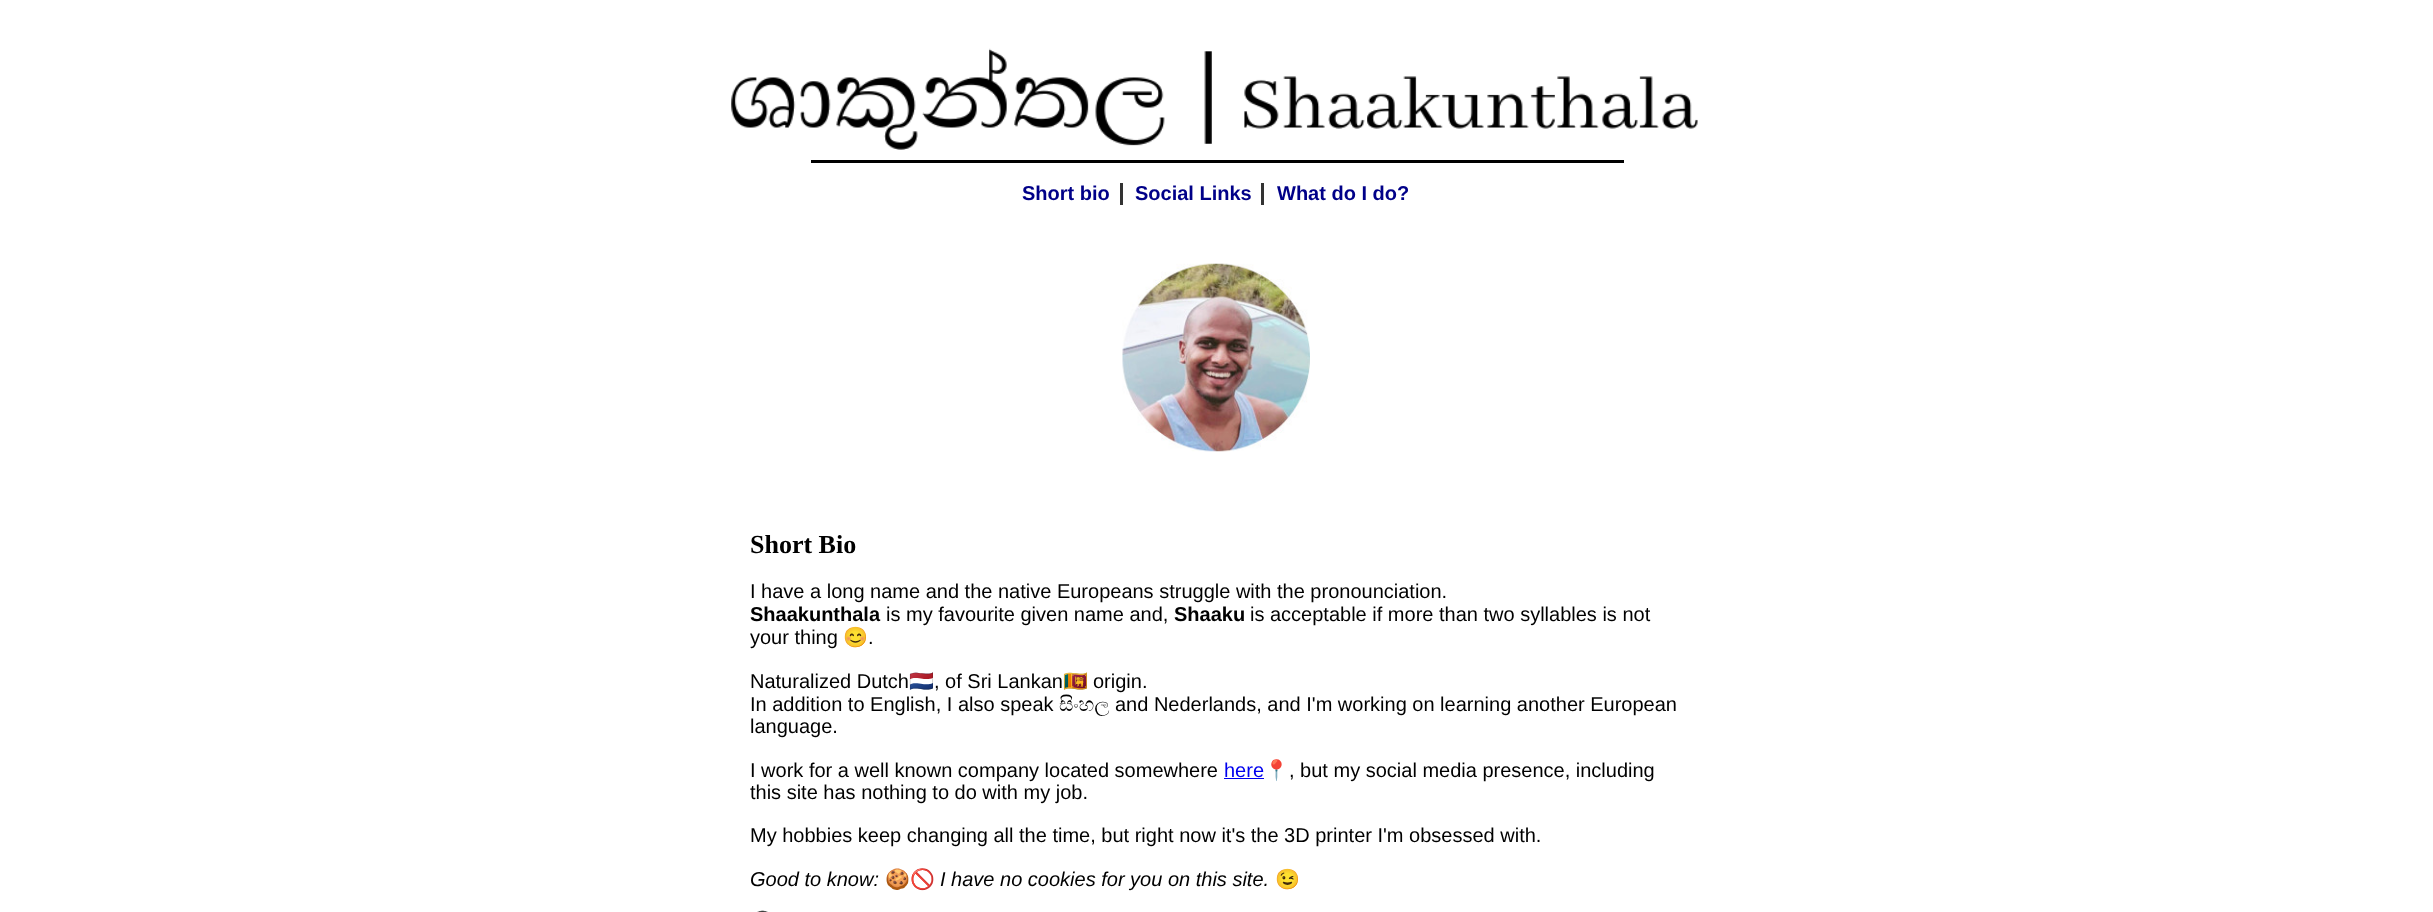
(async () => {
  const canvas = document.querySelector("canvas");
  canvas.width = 2433;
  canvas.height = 912;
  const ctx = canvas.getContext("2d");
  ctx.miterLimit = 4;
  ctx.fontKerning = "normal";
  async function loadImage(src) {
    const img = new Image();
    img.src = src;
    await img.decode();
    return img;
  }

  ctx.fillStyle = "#ffffff";
  ctx.fillRect(0, 0, 2433, 912);
  ctx.drawImage(await loadImage("img/1.png"), 731, 48, 967, 102);
  for (const [x, y, w, h, color] of [
    [811, 160, 813, 3, "#000000"],
    [1120, 183, 3, 22, "#333333"],
    [1261, 183, 3, 22, "#333333"],
  ]) {
    ctx.fillStyle = color;
    ctx.fillRect(x, y, w, h);
  }
  ctx.drawImage(await loadImage("img/2.png"), 1122, 263, 188, 189);
  ctx.fillStyle = "#0000ee";
  ctx.fillRect(1224, 778, 40, 1);
  ctx.drawImage(await loadImage("img/3.png"), 757, 910, 11, 2);
  ctx.font = "bold 20px Liberation Sans";
  ctx.fillStyle = "#000088";
  for (const [text, x, y] of [
    ["Short bio", 1022, 200],
    ["Social Links", 1135, 200],
    ["What do I do?", 1277, 200],
  ]) {
    ctx.fillText(text, x, y);
  }
  ctx.font = "bold 26px Liberation Serif";
  ctx.fillStyle = "#000000";
  ctx.fillText("Short Bio", 750, 553);
  ctx.font = "20px Liberation Sans";
  ctx.fillText("I have a long name and the native Europeans struggle with the pronounciation.", 750, 598);
  ctx.font = "bold 20px Liberation Sans";
  ctx.fillText("Shaakunthala", 750, 621);
  ctx.font = "20px Liberation Sans";
  ctx.fillText("is my favourite given name and,", 886, 621);
  ctx.font = "bold 20px Liberation Sans";
  ctx.fillText("Shaaku", 1174, 621);
  ctx.font = "20px Liberation Sans";
  ctx.fillText("is acceptable if more than two syllables is not", 1250, 621);
  ctx.fillText("your thing", 750, 644);
  ctx.font = "20px Noto Color Emoji";
  ctx.fillText("😊", 843, 644);
  ctx.font = "20px Liberation Sans";
  ctx.fillText(".", 868, 644);
  ctx.fillText("Naturalized Dutch", 750, 688);
  ctx.font = "20px Noto Color Emoji";
  ctx.fillText("🇳🇱", 909, 688);
  ctx.font = "20px Liberation Sans";
  ctx.fillText(", of Sri Lankan", 934, 688);
  ctx.font = "20px Noto Color Emoji";
  ctx.fillText("🇱🇰", 1063, 688);
  ctx.font = "20px Liberation Sans";
  ctx.fillText("origin.", 1093, 688);
  ctx.fillText("In addition to English, I also speak", 750, 711);
  ctx.font = "20px FreeSerif";
  ctx.fillText("සිංහල", 1059, 711);
  ctx.font = "20px Liberation Sans";
  for (const [text, x, y] of [
    ["and Nederlands, and I'm working on learning another European", 1115, 711],
    ["language.", 750, 733],
    ["I work for a well known company located somewhere", 750, 777],
  ]) {
    ctx.fillText(text, x, y);
  }
  ctx.fillStyle = "#0000ee";
  ctx.fillText("here", 1224, 777);
  ctx.font = "20px Noto Color Emoji";
  ctx.fillStyle = "#000000";
  ctx.fillText("📍", 1264, 777);
  ctx.font = "20px Liberation Sans";
  for (const [text, x, y] of [
    [", but my social media presence, including", 1289, 777],
    ["this site has nothing to do with my job.", 750, 799],
    ["My hobbies keep changing all the time, but right now it's the 3D printer I'm obsessed with.", 750, 842],
  ]) {
    ctx.fillText(text, x, y);
  }
  ctx.font = "italic 20px Liberation Sans";
  ctx.fillText("Good to know:", 750, 886);
  ctx.font = "20px Noto Color Emoji";
  ctx.fillText("🍪🚫", 885, 886);
  ctx.font = "italic 20px Liberation Sans";
  ctx.fillText("I have no cookies for you on this site.", 940, 886);
  ctx.font = "20px Noto Color Emoji";
  ctx.fillText("😉", 1275, 886);
})();
